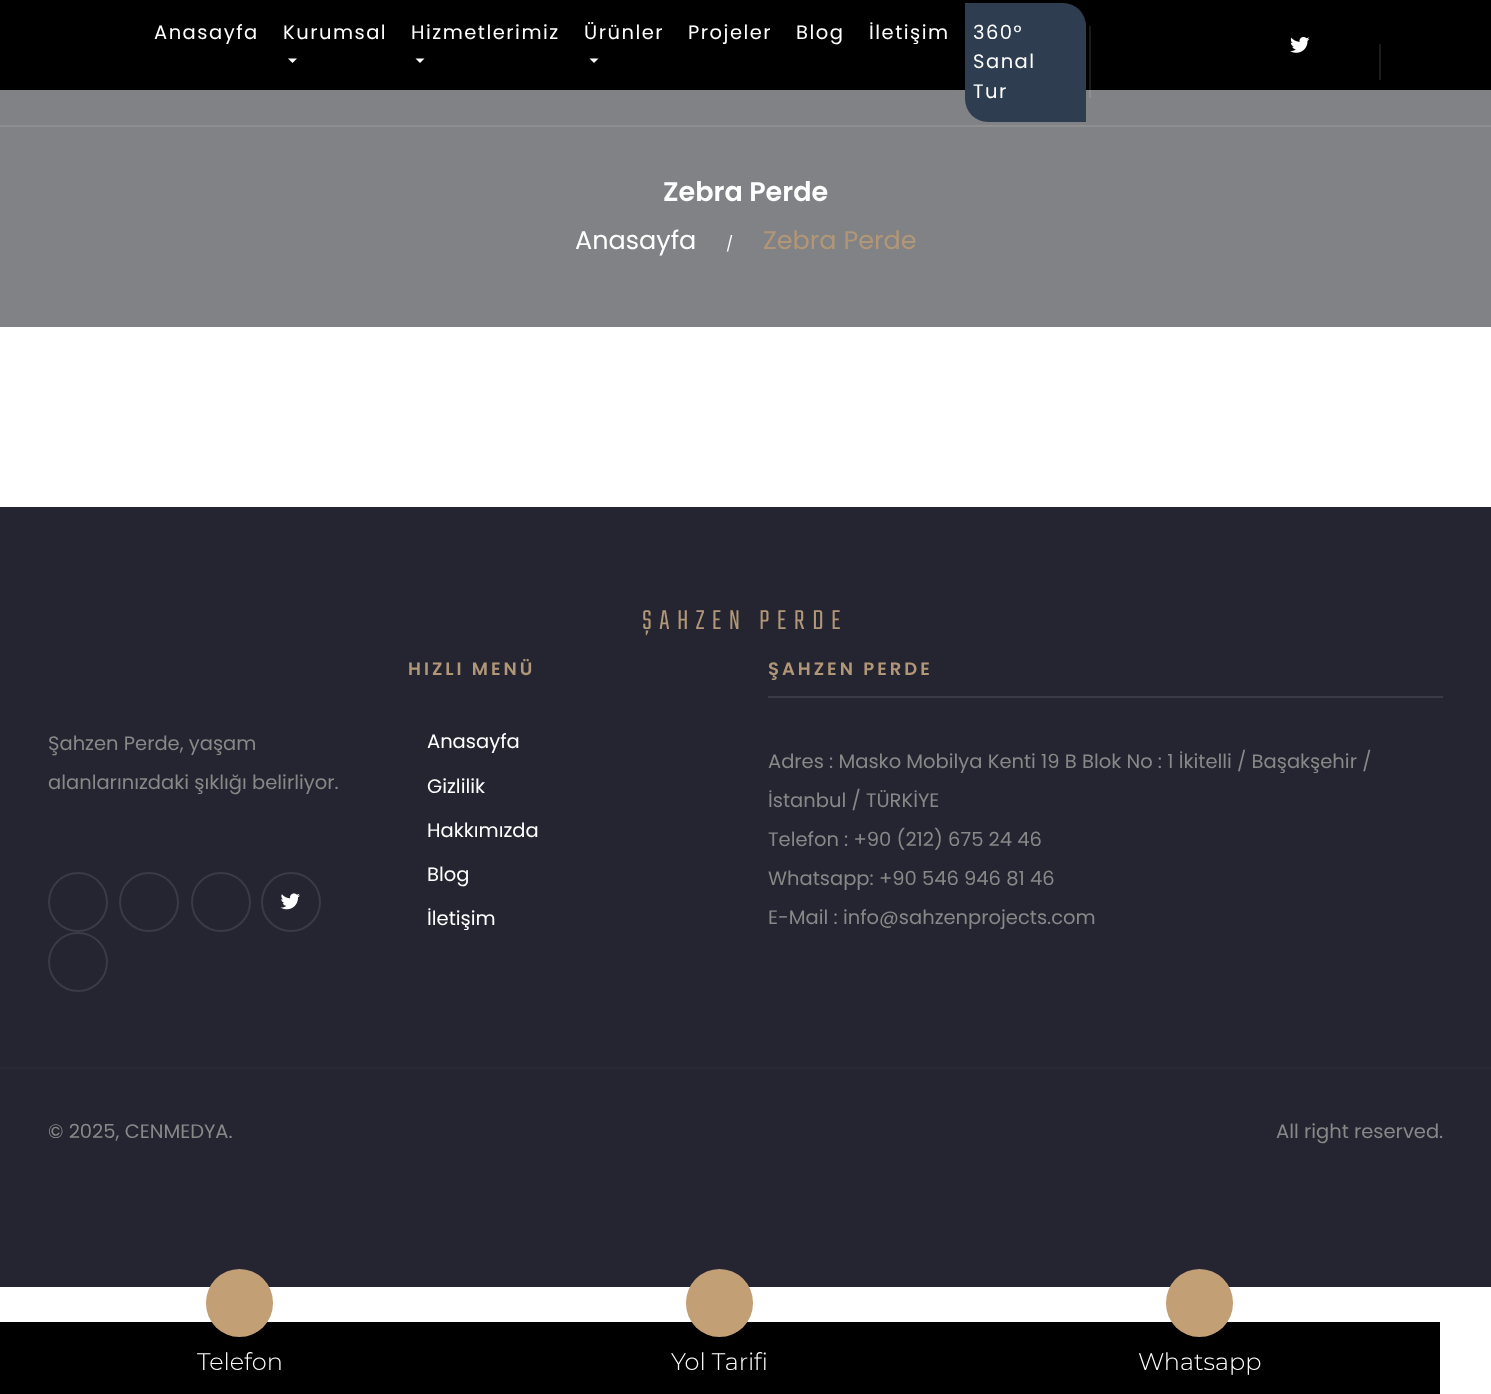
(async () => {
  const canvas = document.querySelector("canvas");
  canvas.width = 1491;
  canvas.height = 1394;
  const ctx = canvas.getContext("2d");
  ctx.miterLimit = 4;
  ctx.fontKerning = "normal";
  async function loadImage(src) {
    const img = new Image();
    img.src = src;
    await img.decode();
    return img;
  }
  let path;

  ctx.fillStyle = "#ffffff";
  ctx.fillRect(0, 0, 1491, 1394);
  for (const [x, y, w, h, color] of [
    [0, 0, 1491, 90, "#000000"],
    [1089, 26, 2, 64, "#1a1a1a"],
    [0, 90, 1491, 237, "#818285"],
    [0, 125, 1491, 2, "#8e8f91"],
  ]) {
    ctx.fillStyle = color;
    ctx.fillRect(x, y, w, h);
  }
  ctx.fillStyle = "#ffffff";
  path = new Path2D("M288 58.5H297L292.5 63Z");
  ctx.fill(path);
  path = new Path2D("M415.5 58.5H424.5L420 63Z");
  ctx.fill(path);
  path = new Path2D("M589.5 58.5H598.5L594 63Z");
  ctx.fill(path);
  ctx.fillStyle = "#2e3e50";
  ctx.beginPath();
  ctx.roundRect(965, 3, 121, 119, [0, 23, 0, 23]);
  ctx.fill();
  ctx.drawImage(await loadImage("img/1.png"), 1290, 37, 20, 16);
  for (const [x, y, w, h, color] of [
    [1379, 44, 2, 36, "#1a1a1a"],
    [1089, 90, 2, 8, "#8e8f91"],
    [0, 507, 1491, 780, "#252531"],
  ]) {
    ctx.fillStyle = color;
    ctx.fillRect(x, y, w, h);
  }
  ctx.beginPath();
  ctx.arc(78, 902, 29, 0, Math.PI * 2);
  ctx.strokeStyle = "#3b3b46";
  ctx.lineWidth = 2;
  ctx.stroke();
  ctx.beginPath();
  ctx.arc(149, 902, 29, 0, Math.PI * 2);
  ctx.stroke();
  ctx.beginPath();
  ctx.arc(221, 902, 29, 0, Math.PI * 2);
  ctx.stroke();
  ctx.beginPath();
  ctx.arc(291, 902, 29, 0, Math.PI * 2);
  ctx.stroke();
  ctx.drawImage(await loadImage("img/2.png"), 280, 893, 20, 17);
  ctx.beginPath();
  ctx.arc(78, 962, 29, 0, Math.PI * 2);
  ctx.stroke();
  for (const [x, y, w, h, color] of [
    [768, 696, 675, 2, "#3b3b46"],
    [0, 1067, 1491, 2, "#292935"],
    [0, 1322, 1440, 72, "#000000"],
  ]) {
    ctx.fillStyle = color;
    ctx.fillRect(x, y, w, h);
  }
  ctx.fillStyle = "#c29f75";
  ctx.beginPath();
  ctx.roundRect(206, 1269, 67, 68, 33.5);
  ctx.fill();
  ctx.beginPath();
  ctx.roundRect(686, 1269, 67, 68, 33.5);
  ctx.fill();
  ctx.beginPath();
  ctx.roundRect(1166, 1269, 67, 68, 33.5);
  ctx.fill();
  ctx.letterSpacing = "1.5px";
  ctx.font = "19.5px Poppins";
  ctx.fillStyle = "#ffffff";
  for (const [text, x, y] of [
    ["Anasayfa", 154, 39],
    ["Kurumsal", 283, 39],
    ["Hizmetlerimiz", 411, 39],
    ["Ürünler", 584, 39],
    ["Projeler", 688, 39],
    ["Blog", 796, 39],
    ["İletişim", 869, 39],
    ["360°", 973, 39],
    ["Sanal", 973, 68],
    ["Tur", 973, 98],
  ]) {
    ctx.fillText(text, x, y);
  }
  ctx.letterSpacing = "0px";
  ctx.font = "600 27px Poppins";
  ctx.fillText("Zebra Perde", 663, 201);
  ctx.font = "25.5px Poppins";
  ctx.fillText("Anasayfa", 575, 249);
  ctx.font = "15px Poppins";
  ctx.fillText("/", 726, 249);
  ctx.font = "25.5px Poppins";
  ctx.fillStyle = "#b19777";
  ctx.fillText("Zebra Perde", 763, 249);
  ctx.letterSpacing = "7.5px";
  ctx.font = "300 30px Teko";
  ctx.fillText("ŞAHZEN PERDE", 642, 629);
  ctx.letterSpacing = "0px";
  ctx.font = "19.5px Poppins";
  ctx.fillStyle = "#888888";
  ctx.fillText("Şahzen Perde, yaşam", 48, 750);
  ctx.fillText("alanlarınızdaki şıklığı belirliyor.", 48, 789);
  ctx.letterSpacing = "3px";
  ctx.font = "600 18px Poppins";
  ctx.fillStyle = "#b19777";
  ctx.fillText("HIZLI MENÜ", 408, 675);
  ctx.letterSpacing = "0px";
  ctx.font = "19.5px Poppins";
  ctx.fillStyle = "#ffffff";
  for (const [text, x, y] of [
    ["Anasayfa", 427, 748],
    ["Gizlilik", 427, 793],
    ["Hakkımızda", 427, 837],
    ["Blog", 427, 881],
    ["İletişim", 427, 925],
  ]) {
    ctx.fillText(text, x, y);
  }
  ctx.letterSpacing = "3px";
  ctx.font = "600 18px Poppins";
  ctx.fillStyle = "#b19777";
  ctx.fillText("ŞAHZEN PERDE", 768, 675);
  ctx.letterSpacing = "0px";
  ctx.font = "19.5px Poppins";
  ctx.fillStyle = "#888888";
  for (const [text, x, y] of [
    ["Adres : Masko Mobilya Kenti 19 B Blok No : 1 İkitelli / Başakşehir /", 768, 768],
    ["İstanbul / TÜRKİYE", 768, 807],
    ["Telefon : +90 (212) 675 24 46", 768, 846],
    ["Whatsapp: +90 546 946 81 46", 768, 885],
    ["E-Mail : info@sahzenprojects.com", 768, 924],
    ["© 2025, CENMEDYA.", 48, 1138],
    ["All right reserved.", 1276, 1138],
  ]) {
    ctx.fillText(text, x, y);
  }
  ctx.font = "300 24px Montserrat";
  ctx.fillStyle = "#ffffff";
  for (const [text, x, y] of [
    ["Telefon", 197, 1370],
    ["Yol Tarifi", 671, 1370],
    ["Whatsapp", 1138, 1370],
  ]) {
    ctx.fillText(text, x, y);
  }
})();
